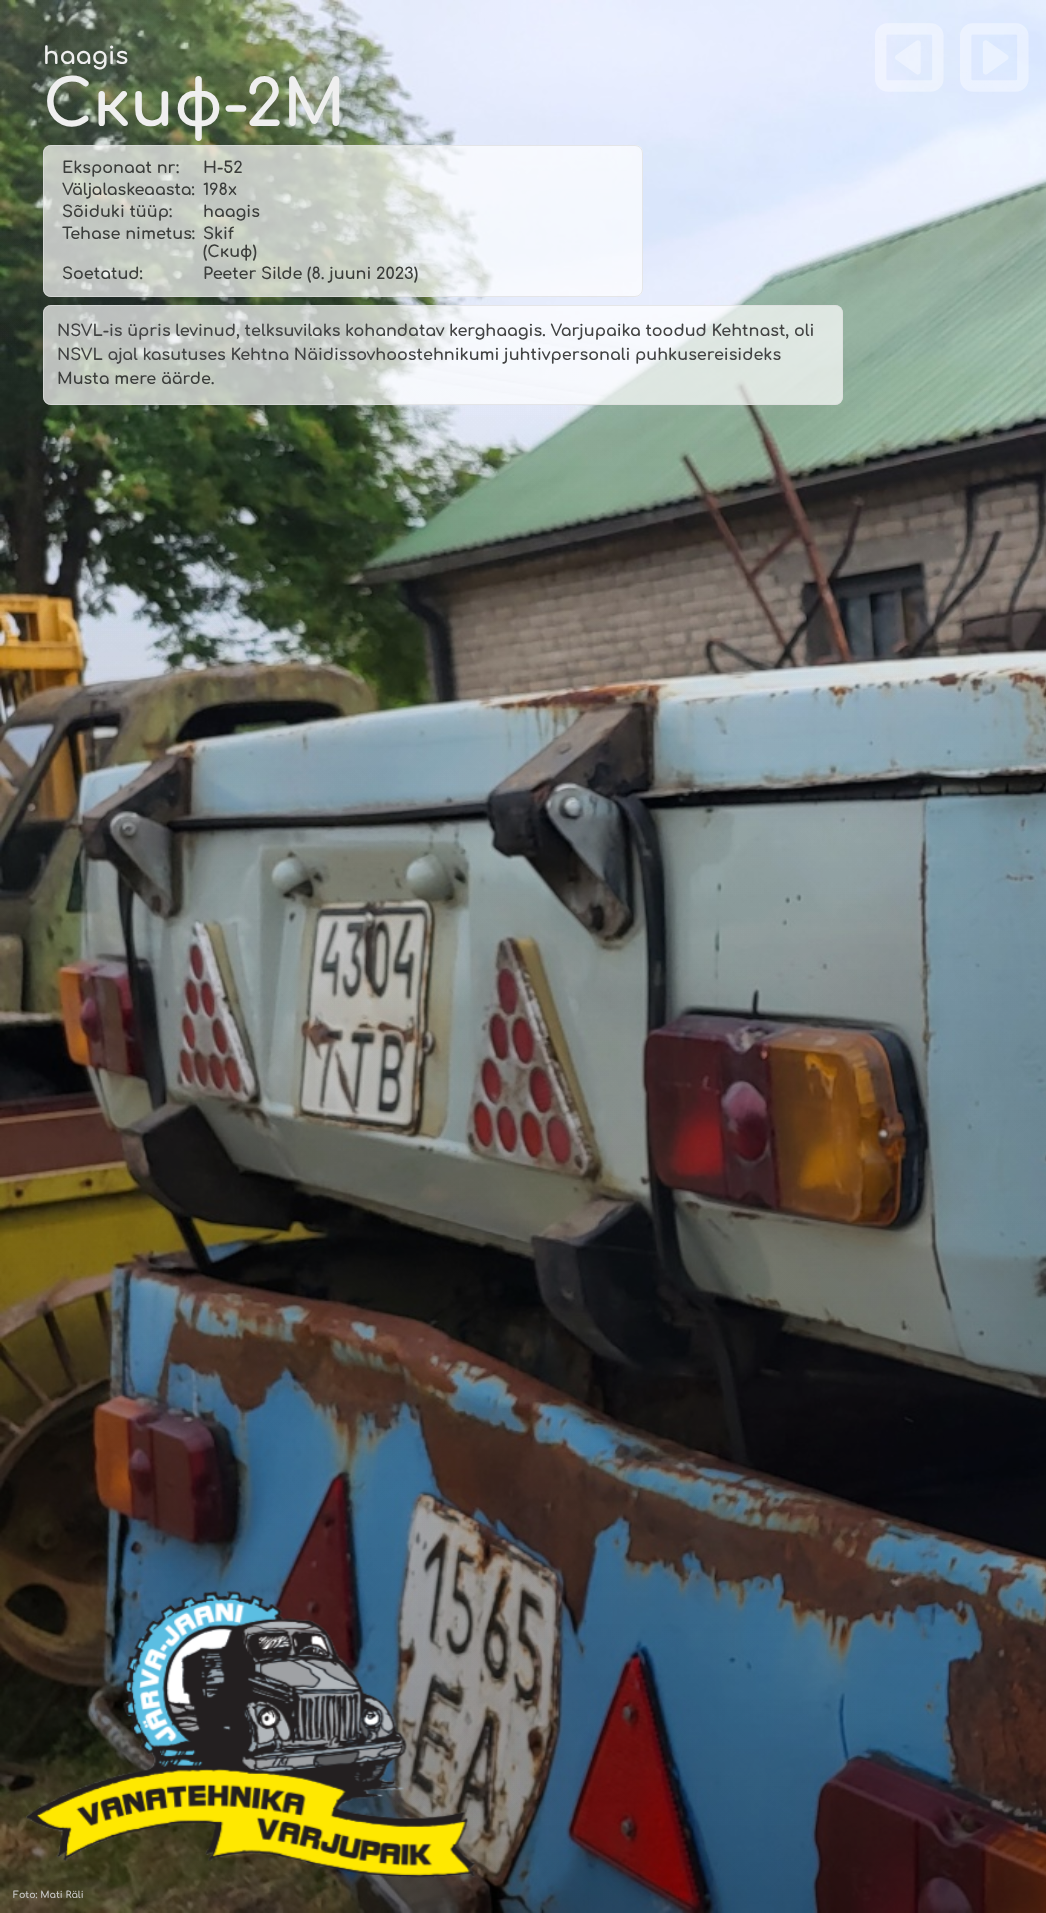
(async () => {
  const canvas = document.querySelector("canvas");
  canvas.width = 1046;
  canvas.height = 1913;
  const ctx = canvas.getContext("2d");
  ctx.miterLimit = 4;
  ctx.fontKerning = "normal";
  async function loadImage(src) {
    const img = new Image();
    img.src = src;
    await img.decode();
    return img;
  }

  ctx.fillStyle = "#ffffff";
  ctx.fillRect(0, 0, 1046, 1913);
  ctx.drawImage(await loadImage("img/1.png"), 0, 0, 1046, 1913);
  ctx.fillStyle = "rgba(255, 255, 255, 0.7)";
  ctx.beginPath();
  ctx.roundRect(43, 145, 600, 152, 8);
  ctx.fill();
  ctx.beginPath();
  ctx.roundRect(43.5, 145.5, 599, 151, 7.5);
  ctx.strokeStyle = "rgba(221, 221, 221, 0.7)";
  ctx.stroke();
  ctx.beginPath();
  ctx.roundRect(43, 305, 800, 100, 8);
  ctx.fill();
  ctx.beginPath();
  ctx.roundRect(43.5, 305.5, 799, 99, 7.5);
  ctx.stroke();
  ctx.drawImage(await loadImage("img/2.png"), 875, 23, 69, 69);
  ctx.drawImage(await loadImage("img/3.png"), 960, 23, 69, 69);
  ctx.drawImage(await loadImage("img/4.png"), 26, 1590, 449, 288);
  ctx.font = "bold 24px Comfortaa";
  ctx.fillStyle = "#efefef";
  ctx.fillText("haagis", 43, 64);
  ctx.font = "bold 64px Comfortaa";
  ctx.fillText("Скиф-2M", 43, 126);
  ctx.font = "bold 16px Comfortaa";
  ctx.fillStyle = "#3b3d3b";
  for (const [text, x, y] of [
    ["Eksponaat nr:", 62, 173],
    ["H-52", 203, 173],
    ["Väljalaskeaasta:", 62, 195],
    ["198x", 203, 195],
    ["Sõiduki tüüp:", 62, 217],
    ["haagis", 203, 217],
    ["Tehase nimetus:", 62, 239],
    ["Skif", 203, 239],
    ["(Скиф)", 203, 257],
    ["Soetatud:", 62, 279],
    ["Peeter Silde (8. juuni 2023)", 203, 279],
  ]) {
    ctx.fillText(text, x, y);
  }
  ctx.fillStyle = "#424343";
  ctx.fillText("NSVL-is üpris levinud, telksuvilaks kohandatav kerghaagis. Varjupaika toodud Kehtnast, oli", 57, 336);
  ctx.fillText("NSVL ajal kasutuses Kehtna Näidissovhoostehnikumi juhtivpersonali puhkusereisideks", 57, 360);
  ctx.fillStyle = "#3b3d3b";
  ctx.fillText("Musta mere äärde.", 57, 384);
  ctx.font = "bold 9.5px Comfortaa";
  ctx.fillStyle = "#c9c9c9";
  ctx.fillText("Foto: Mati Räli", 13, 1898);
})();
